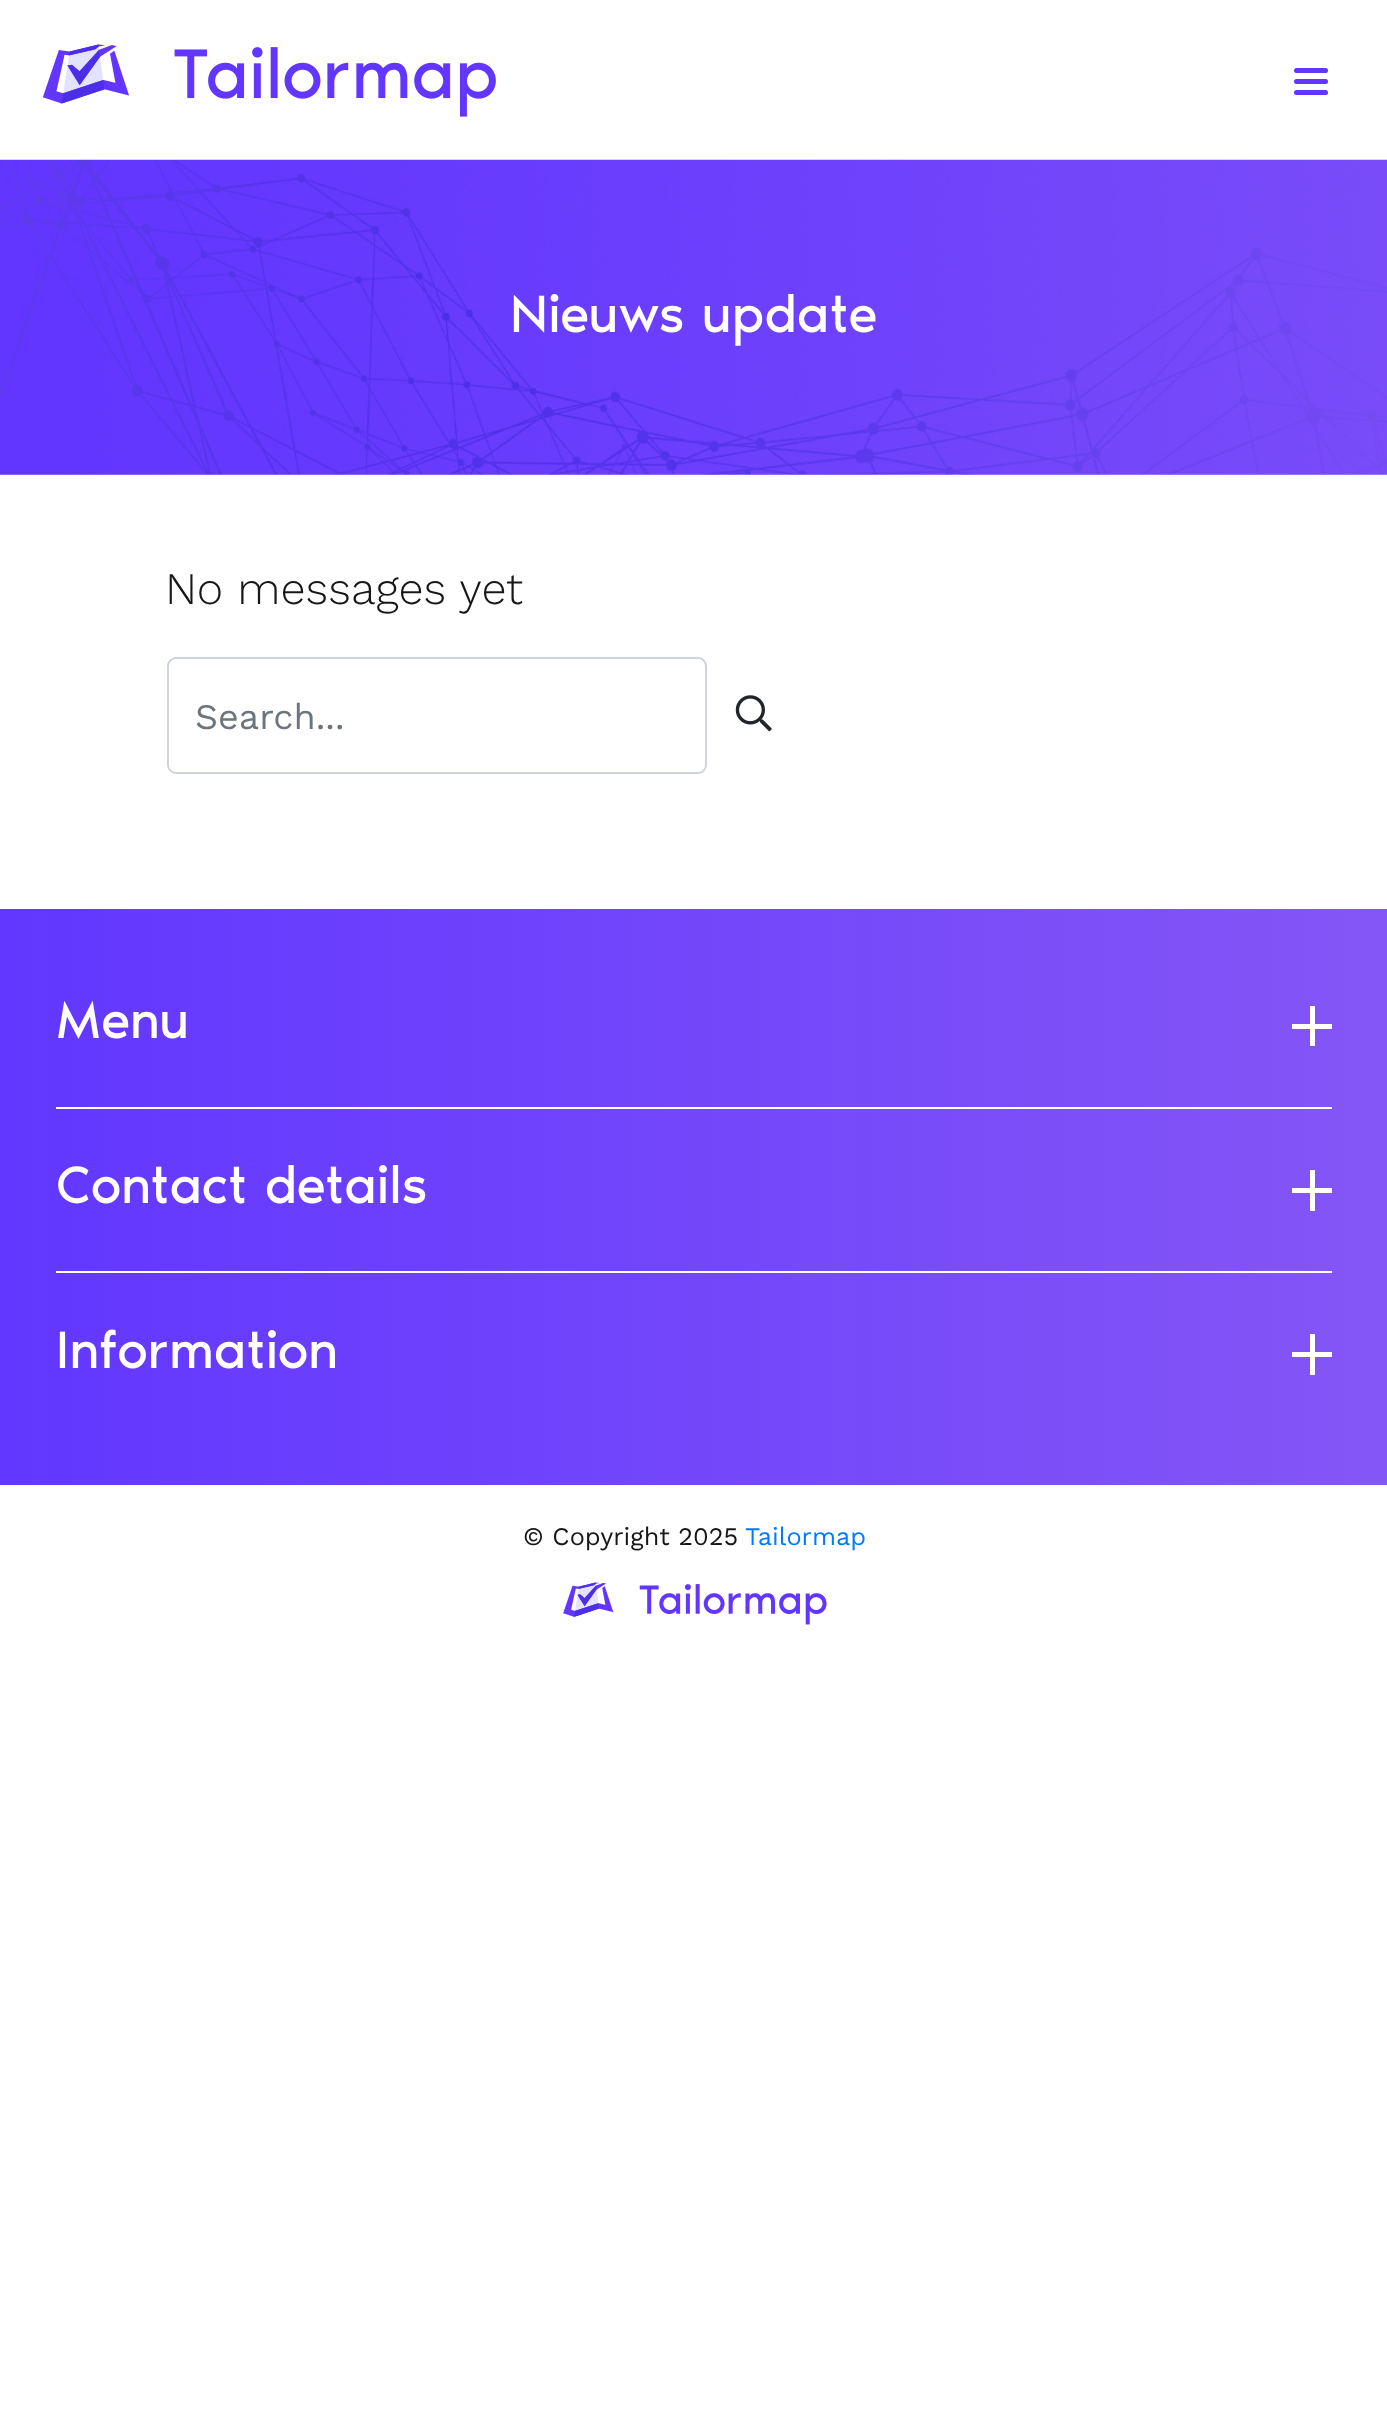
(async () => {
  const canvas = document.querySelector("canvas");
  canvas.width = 1387;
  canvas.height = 2418;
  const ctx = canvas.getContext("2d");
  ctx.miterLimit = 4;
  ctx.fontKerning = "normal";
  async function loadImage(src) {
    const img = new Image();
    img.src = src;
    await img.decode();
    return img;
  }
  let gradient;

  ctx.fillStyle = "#ffffff";
  ctx.fillRect(0, 0, 1387, 2418);
  ctx.drawImage(await loadImage("img/1.png"), 42, 44, 454, 73);
  ctx.fillStyle = "#6236ff";
  ctx.beginPath();
  ctx.roundRect(1294, 68, 34, 5, 2.5);
  ctx.fill();
  ctx.beginPath();
  ctx.roundRect(1294, 79, 34, 5, 2.5);
  ctx.fill();
  ctx.beginPath();
  ctx.roundRect(1294, 90, 34, 5, 2.5);
  ctx.fill();
  ctx.drawImage(await loadImage("img/2.png"), 0, 159, 1387, 316);
  ctx.beginPath();
  ctx.roundRect(168, 658, 538, 115, 8);
  ctx.strokeStyle = "#ced4da";
  ctx.lineWidth = 2;
  ctx.stroke();
  ctx.drawImage(await loadImage("img/3.png"), 735, 695, 37, 37);
  gradient = ctx.createLinearGradient(0, 1197, 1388, 1197);
  gradient.addColorStop(0, "#6237ff");
  gradient.addColorStop(1, "#8456f6");
  ctx.fillStyle = gradient;
  ctx.fillRect(0, 909, 1387, 576);
  for (const [x, y, w, h, color] of [
    [56, 1107, 1276, 2, "#ffffff"],
    [1292, 1024, 40, 5, "#ffffff"],
    [1310, 1006, 5, 40, "#ffffff"],
    [56, 1271, 1276, 2, "#ffffff"],
    [1292, 1188, 40, 5, "#ffffff"],
    [1310, 1170, 5, 41, "#ffffff"],
    [1292, 1352, 40, 5, "#ffffff"],
    [1310, 1334, 5, 41, "#ffffff"],
  ]) {
    ctx.fillStyle = color;
    ctx.fillRect(x, y, w, h);
  }
  ctx.drawImage(await loadImage("img/4.png"), 563, 1582, 264, 43);
  ctx.font = "54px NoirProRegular";
  ctx.fillText("Nieuws update", 510, 332);
  ctx.font = "300 45px Work Sans";
  ctx.fillStyle = "#17171a";
  ctx.fillText("No messages yet", 165, 604);
  ctx.font = "36px Work Sans";
  ctx.fillStyle = "#6c757d";
  ctx.fillText("Search...", 195, 729);
  ctx.font = "54px NoirProRegular";
  ctx.fillStyle = "#ffffff";
  for (const [text, x, y] of [
    ["Menu", 56, 1038],
    ["Contact details", 56, 1203],
    ["Information", 56, 1368],
  ]) {
    ctx.fillText(text, x, y);
  }
  ctx.font = "25.25px Work Sans";
  ctx.fillStyle = "#17171a";
  ctx.fillText("© Copyright 2025", 523, 1545);
  ctx.fillStyle = "#007bff";
  ctx.fillText("Tailormap", 745, 1545);
})();
